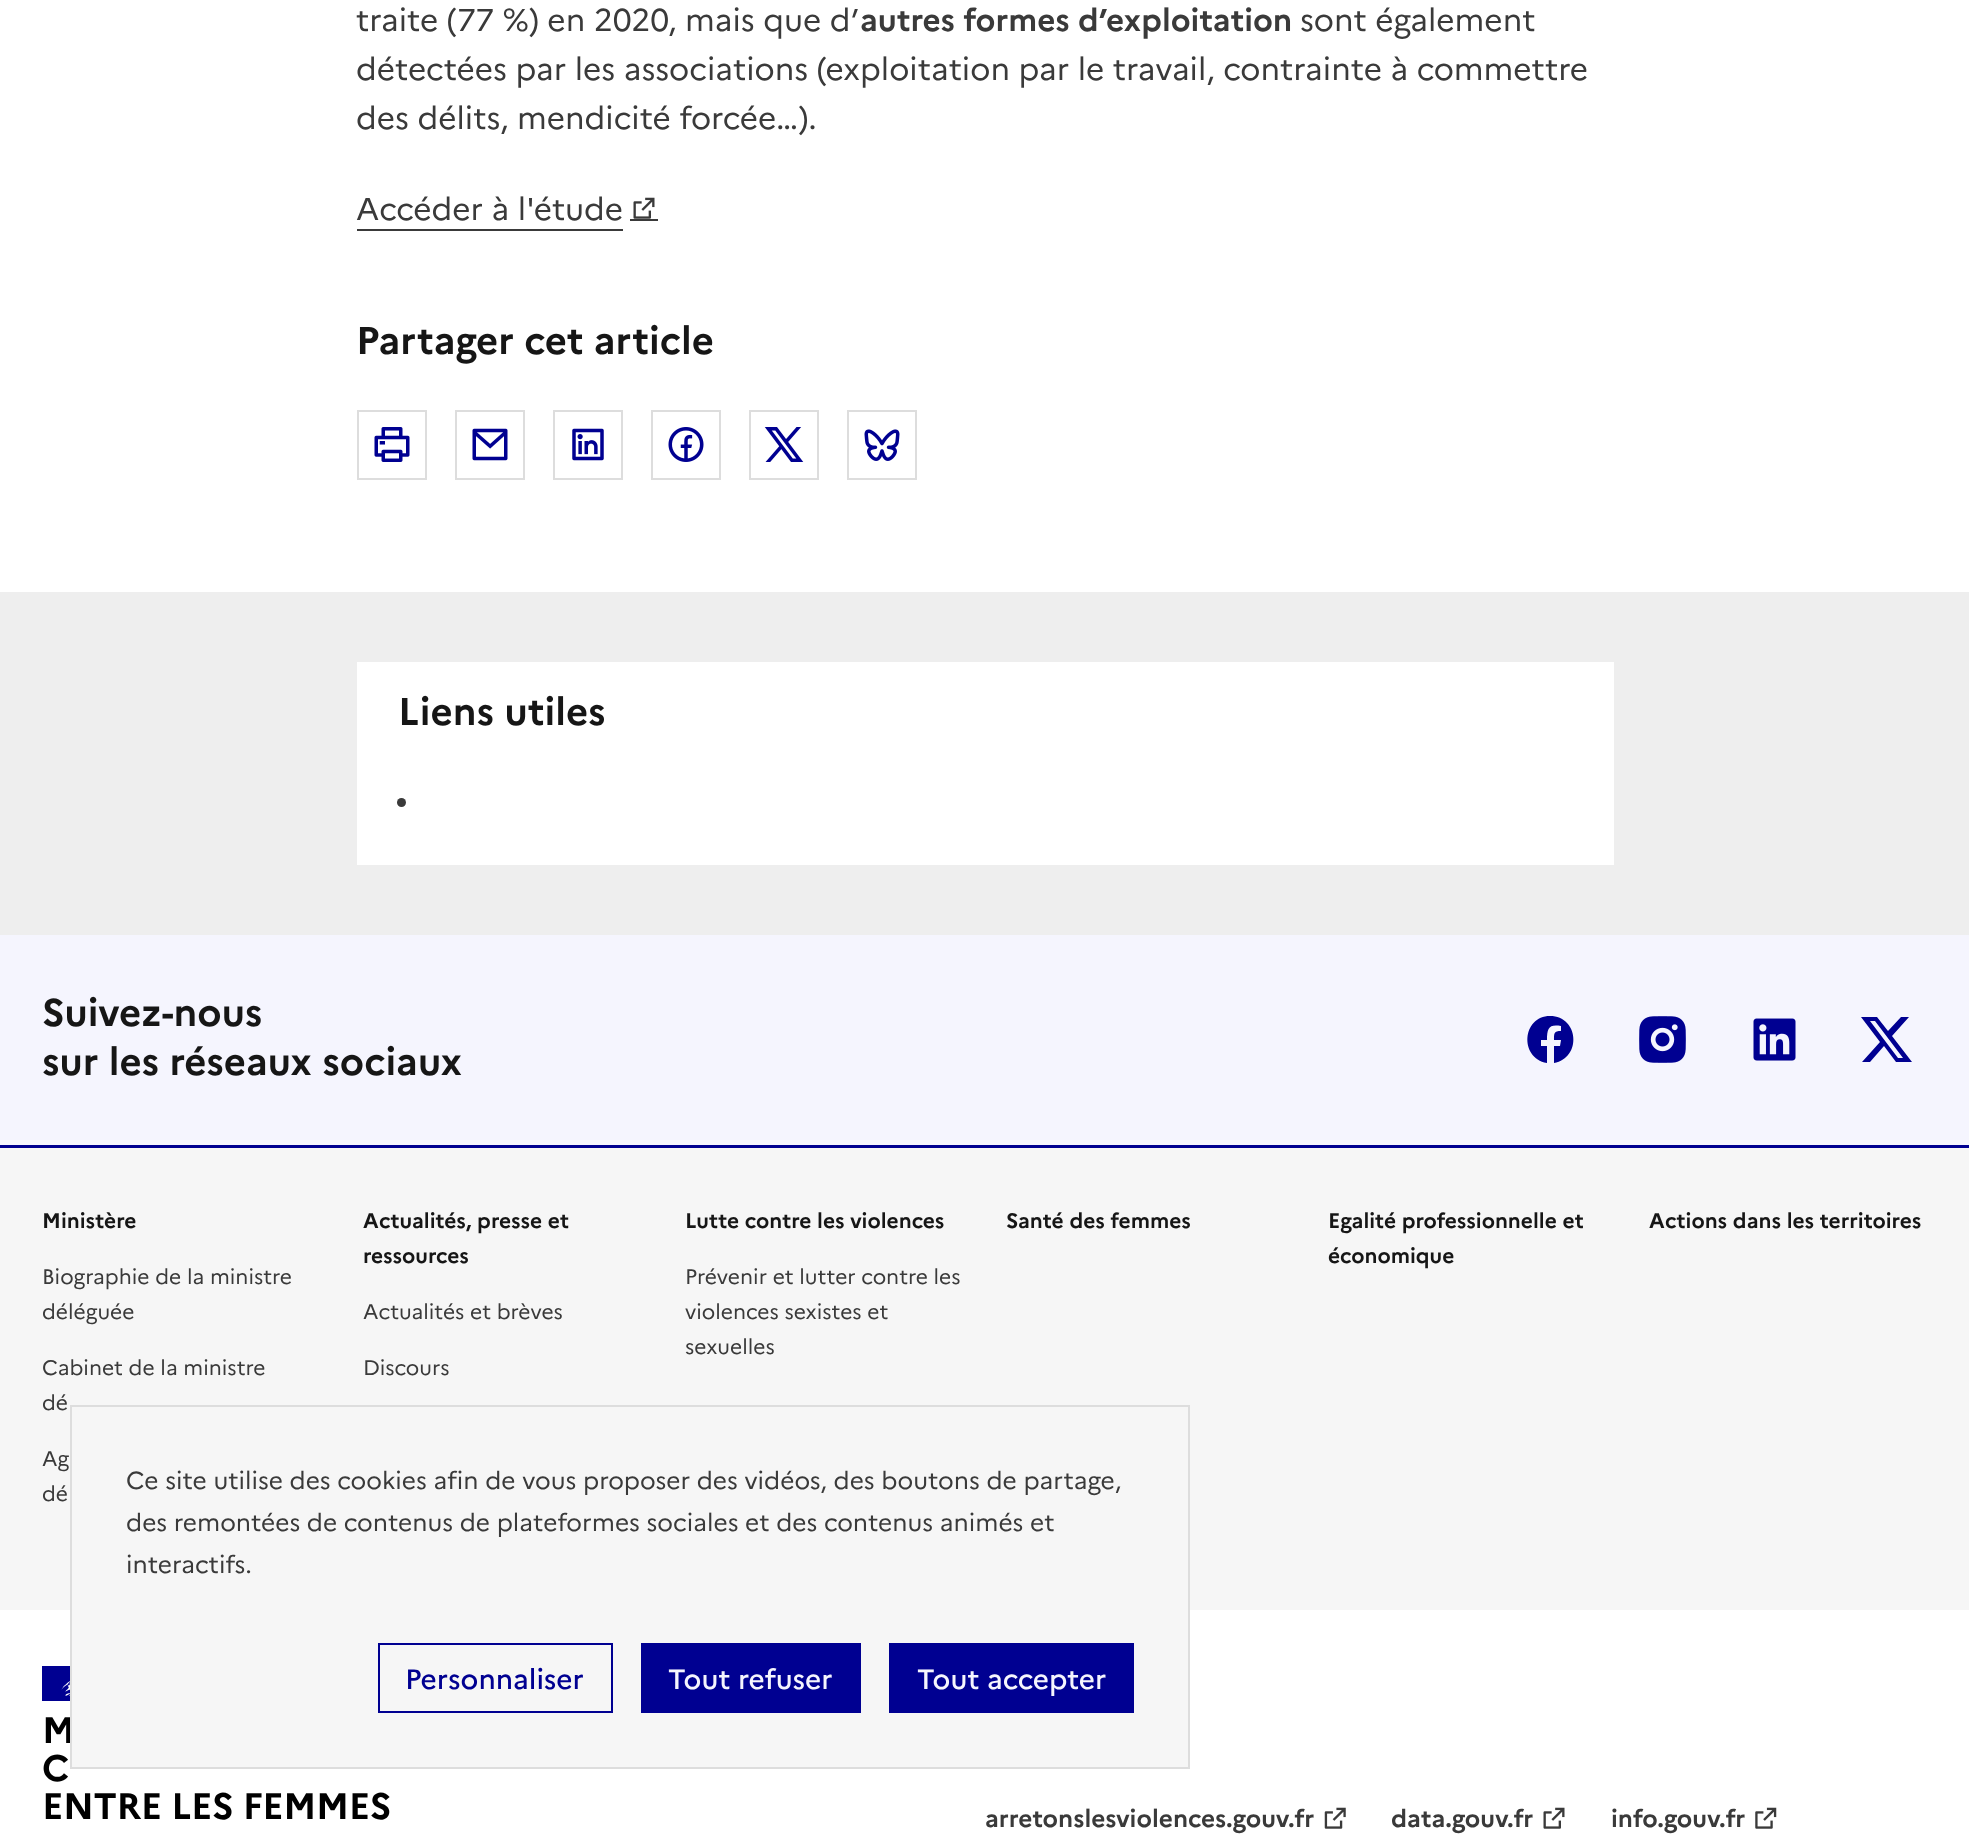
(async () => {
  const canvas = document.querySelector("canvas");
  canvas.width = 1969;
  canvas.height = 1839;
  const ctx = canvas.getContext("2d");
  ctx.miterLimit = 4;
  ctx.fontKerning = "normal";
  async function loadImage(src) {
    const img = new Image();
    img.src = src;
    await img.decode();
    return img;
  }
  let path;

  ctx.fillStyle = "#ffffff";
  ctx.fillRect(0, 0, 1969, 1839);
  ctx.fillStyle = "#3a3a3a";
  ctx.fillRect(357, 229, 266, 2);
  ctx.fillRect(630, 219, 28, 2);
  ctx.drawImage(await loadImage("img/1.png"), 633, 197, 22, 22);
  ctx.strokeStyle = "#dddddd";
  ctx.lineWidth = 2;
  ctx.strokeRect(358, 411, 68, 68);
  ctx.drawImage(await loadImage("img/2.png"), 374, 427, 36, 35);
  ctx.strokeRect(456, 411, 68, 68);
  ctx.drawImage(await loadImage("img/3.png"), 472, 428, 36, 33);
  ctx.strokeRect(554, 411, 68, 68);
  ctx.drawImage(await loadImage("img/4.png"), 572, 428, 32, 33);
  ctx.strokeRect(652, 411, 68, 68);
  ctx.drawImage(await loadImage("img/5.png"), 668, 427, 36, 35);
  ctx.strokeRect(750, 411, 68, 68);
  ctx.drawImage(await loadImage("img/6.png"), 764, 427, 40, 35);
  ctx.strokeRect(848, 411, 68, 68);
  ctx.drawImage(await loadImage("img/7.png"), 864, 429, 36, 32);
  ctx.fillStyle = "#eeeeee";
  ctx.fillRect(0, 592, 1969, 343);
  ctx.fillStyle = "#ffffff";
  ctx.fillRect(357, 662, 1257, 203);
  ctx.fillStyle = "#3a3a3a";
  ctx.beginPath();
  ctx.arc(401.5, 802.5, 4.5, 0, Math.PI * 2);
  ctx.fill();
  ctx.fillStyle = "#f5f5fe";
  ctx.fillRect(0, 935, 1969, 210);
  ctx.fillStyle = "#000091";
  path = new Path2D("M1550 1016C1522 1016 1519 1058 1547 1063V1046H1541V1040H1547C1547 1028 1549 1024 1561 1026V1031C1554 1031 1554 1033 1554 1040H1561L1560 1046H1554V1063C1582 1058 1579 1016 1550 1016Z");
  ctx.fill(path);
  ctx.drawImage(await loadImage("img/8.png"), 1639, 1016, 47, 47);
  ctx.drawImage(await loadImage("img/9.png"), 1753, 1018, 43, 43);
  path = new Path2D("M1901 1017H1909L1892 1036L1912 1062H1896L1884 1046L1870 1062H1862L1880 1042L1861 1017H1877L1888 1031ZM1898 1058H1903L1875 1021H1870Z");
  ctx.fill(path);
  for (const [x, y, w, h, color] of [
    [0, 1145, 1969, 3, "#000091"],
    [0, 1148, 1969, 462, "#f6f6f6"],
    [42, 1666, 28, 35, "#000091"],
  ]) {
    ctx.fillStyle = color;
    ctx.fillRect(x, y, w, h);
  }
  ctx.drawImage(await loadImage("img/10.png"), 61, 1681, 9, 15);
  ctx.drawImage(await loadImage("img/11.png"), 1324, 1807, 22, 22);
  ctx.drawImage(await loadImage("img/1.png"), 1543, 1807, 22, 22);
  ctx.drawImage(await loadImage("img/12.png"), 1755, 1807, 22, 22);
  ctx.fillStyle = "#f6f6f6";
  ctx.fillRect(72, 1610, 1116, 157);
  ctx.font = "31.5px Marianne";
  ctx.fillStyle = "#3a3a3a";
  ctx.fillText("traite (77 %) en 2020, mais que d’", 356, 31);
  ctx.font = "bold 31.5px Marianne";
  ctx.fillText("autres formes d’exploitation", 860, 31);
  ctx.font = "31.5px Marianne";
  for (const [text, x, y] of [
    ["sont également", 1300, 31],
    ["détectées par les associations (exploitation par le travail, contrainte à commettre", 356, 80],
    ["des délits, mendicité forcée…).", 356, 129],
    ["Accéder à l'étude", 356, 220],
  ]) {
    ctx.fillText(text, x, y);
  }
  ctx.font = "bold 38.5px Marianne";
  ctx.fillStyle = "#161616";
  for (const [text, x, y] of [
    ["Partager cet article", 356, 354],
    ["Liens utiles", 398, 725],
    ["Suivez-nous", 42, 1026],
    ["sur les réseaux sociaux", 42, 1075],
  ]) {
    ctx.fillText(text, x, y);
  }
  ctx.font = "bold 21px Marianne";
  ctx.fillText("Ministère", 42, 1228);
  ctx.font = "21px Marianne";
  ctx.fillStyle = "#3a3a3a";
  for (const [text, x, y] of [
    ["Biographie de la ministre", 42, 1284],
    ["déléguée", 42, 1319],
    ["Cabinet de la ministre", 42, 1375],
    ["dé", 42, 1410],
    ["Ag", 42, 1466],
    ["dé", 42, 1501],
  ]) {
    ctx.fillText(text, x, y);
  }
  ctx.font = "bold 21px Marianne";
  ctx.fillStyle = "#161616";
  ctx.fillText("Actualités, presse et", 363, 1228);
  ctx.fillText("ressources", 363, 1263);
  ctx.font = "21px Marianne";
  ctx.fillStyle = "#3a3a3a";
  ctx.fillText("Actualités et brèves", 363, 1319);
  ctx.fillText("Discours", 363, 1375);
  ctx.font = "bold 21px Marianne";
  ctx.fillStyle = "#161616";
  ctx.fillText("Lutte contre les violences", 685, 1228);
  ctx.font = "21px Marianne";
  ctx.fillStyle = "#3a3a3a";
  for (const [text, x, y] of [
    ["Prévenir et lutter contre les", 685, 1284],
    ["violences sexistes et", 685, 1319],
    ["sexuelles", 685, 1354],
  ]) {
    ctx.fillText(text, x, y);
  }
  ctx.font = "bold 21px Marianne";
  ctx.fillStyle = "#161616";
  for (const [text, x, y] of [
    ["Santé des femmes", 1006, 1228],
    ["Egalité professionnelle et", 1328, 1228],
    ["économique", 1328, 1263],
    ["Actions dans les territoires", 1649, 1228],
  ]) {
    ctx.fillText(text, x, y);
  }
  ctx.letterSpacing = "-0.4px";
  ctx.font = "bold 36.75px Marianne";
  ctx.fillStyle = "#000000";
  for (const [text, x, y] of [
    ["M", 42, 1743],
    ["C", 42, 1781],
    ["ENTRE LES FEMMES", 42, 1819],
  ]) {
    ctx.fillText(text, x, y);
  }
  ctx.letterSpacing = "0px";
  ctx.font = "bold 24.5px Marianne";
  ctx.fillStyle = "#3a3a3a";
  for (const [text, x, y] of [
    ["arretonslesviolences.gouv.fr", 985, 1827],
    ["data.gouv.fr", 1391, 1827],
    ["info.gouv.fr", 1611, 1827],
  ]) {
    ctx.fillText(text, x, y);
  }
  ctx.strokeRect(71, 1406, 1118, 362);
  ctx.font = "24.5px Marianne";
  for (const [text, x, y] of [
    ["Ce site utilise des cookies afin de vous proposer des vidéos, des boutons de partage,", 126, 1489],
    ["des remontées de contenus de plateformes sociales et des contenus animés et", 126, 1531],
    ["interactifs.", 126, 1573],
  ]) {
    ctx.fillText(text, x, y);
  }
  ctx.strokeStyle = "#000091";
  ctx.strokeRect(379, 1644, 233, 68);
  ctx.font = "500 28px Marianne";
  ctx.fillStyle = "#000091";
  ctx.fillText("Personnaliser", 405, 1689);
  ctx.fillRect(641, 1643, 220, 70);
  ctx.fillStyle = "#f5f5fe";
  ctx.fillText("Tout refuser", 668, 1689);
  ctx.fillStyle = "#000091";
  ctx.fillRect(889, 1643, 245, 70);
  ctx.fillStyle = "#f5f5fe";
  ctx.fillText("Tout accepter", 917, 1689);
})();
